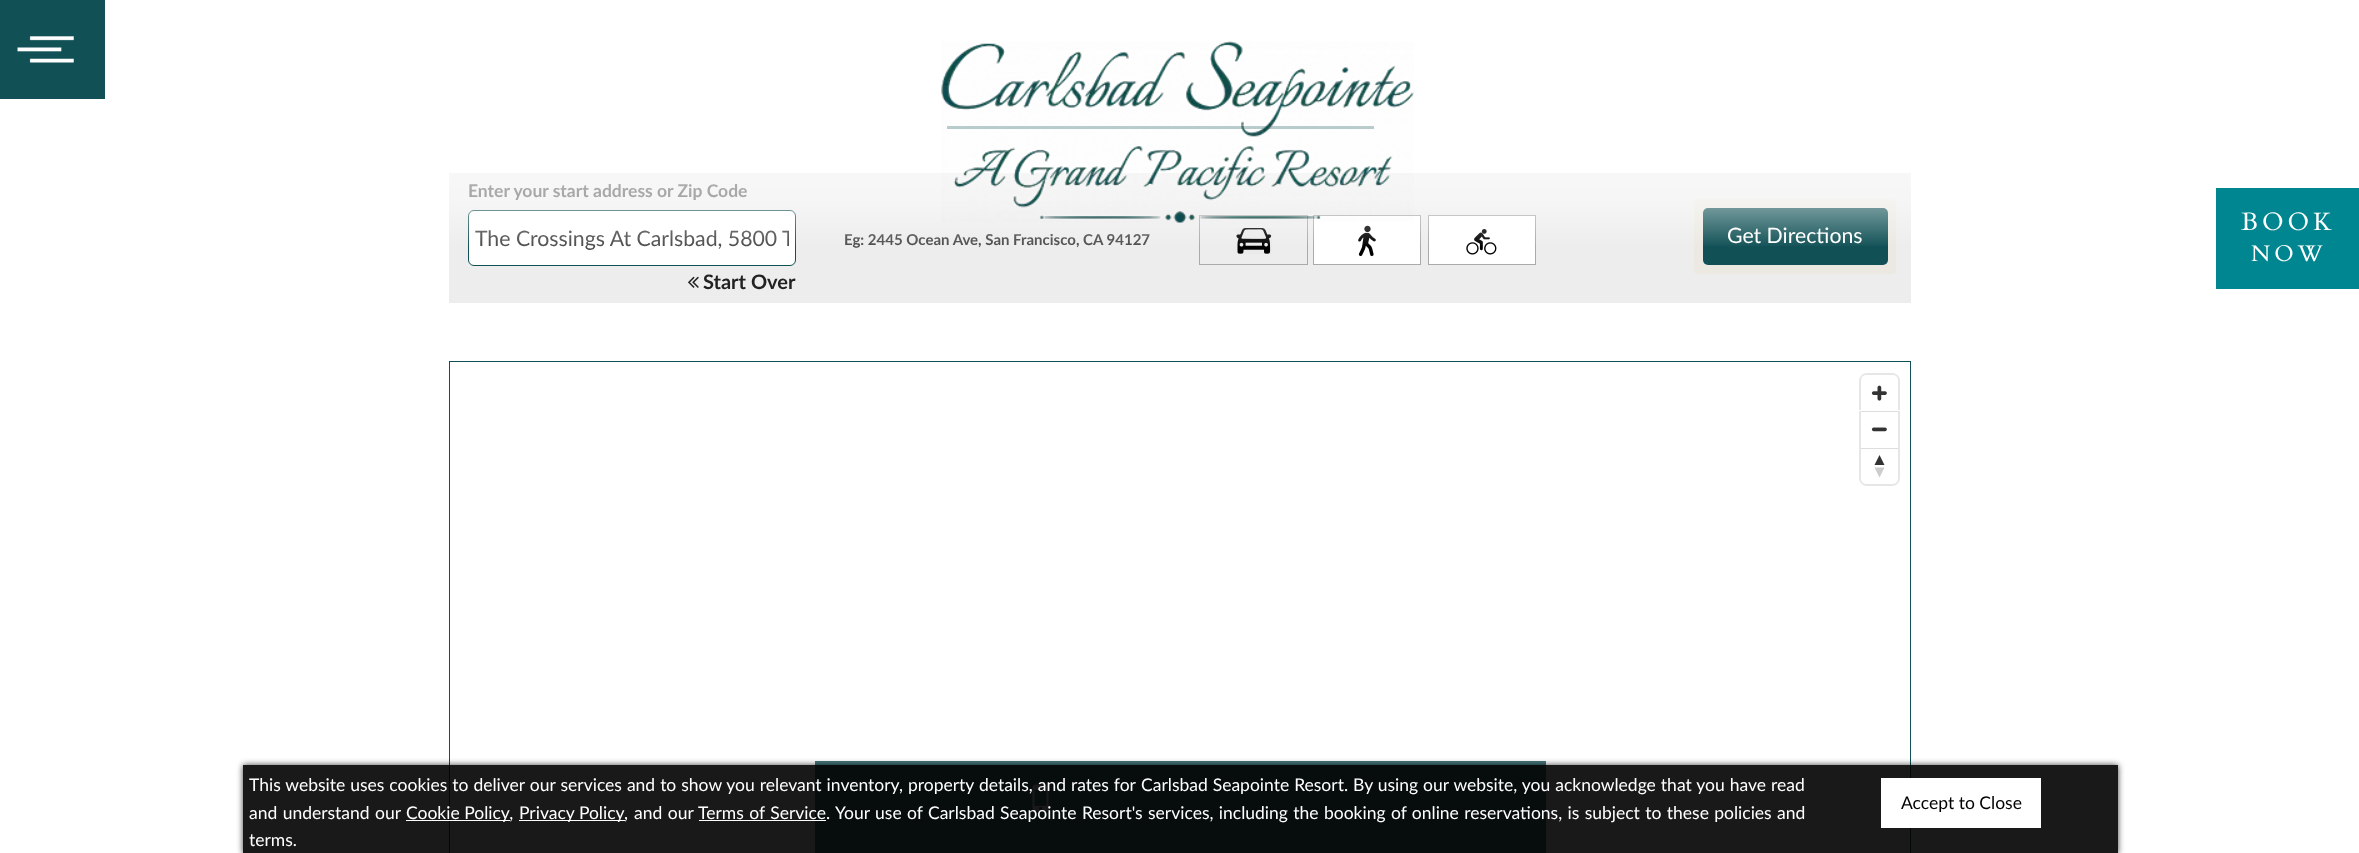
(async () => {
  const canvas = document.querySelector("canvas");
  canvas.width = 2359;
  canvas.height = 853;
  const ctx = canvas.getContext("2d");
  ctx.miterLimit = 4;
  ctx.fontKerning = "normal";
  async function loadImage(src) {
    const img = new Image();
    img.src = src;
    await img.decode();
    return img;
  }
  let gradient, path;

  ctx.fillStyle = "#ffffff";
  ctx.fillRect(0, 0, 2359, 853);
  ctx.fillStyle = "#115152";
  ctx.fillRect(947, 126, 427, 3);
  ctx.fillStyle = "#eeeded";
  ctx.fillRect(449, 173, 1462, 130);
  ctx.fillStyle = "#ffffff";
  ctx.beginPath();
  ctx.roundRect(468.5, 210.5, 327, 55, 5.5);
  ctx.fill();
  ctx.strokeStyle = "#115156";
  ctx.stroke();
  ctx.drawImage(await loadImage("img/1.png"), 688, 276, 11, 12);
  ctx.drawImage(await loadImage("img/2.png"), 1236, 228, 36, 26);
  ctx.strokeStyle = "#aaaaaa";
  ctx.strokeRect(1199.5, 215.5, 108, 49);
  ctx.drawImage(await loadImage("img/3.png"), 1314, 216, 106, 48);
  ctx.strokeRect(1313.5, 215.5, 107, 49);
  ctx.drawImage(await loadImage("img/4.png"), 1429, 216, 106, 48);
  ctx.strokeRect(1428.5, 215.5, 107, 49);
  ctx.fillStyle = "#ebe9e1";
  ctx.beginPath();
  ctx.roundRect(1694, 199, 202, 75, 4);
  ctx.fill();
  ctx.fillStyle = "#115156";
  ctx.beginPath();
  ctx.roundRect(1703, 208, 185, 57, 5);
  ctx.fill();
  ctx.strokeStyle = "#115156";
  ctx.strokeRect(449.5, 361.5, 1461, 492);
  ctx.beginPath();
  ctx.roundRect(1860.5, 374.5, 38, 110, 6.5);
  ctx.strokeStyle = "#e6e6e6";
  ctx.lineWidth = 3;
  ctx.stroke();
  ctx.fillStyle = "#ffffff";
  ctx.beginPath();
  ctx.roundRect(1861, 375, 37, 109, 5);
  ctx.fill();
  ctx.drawImage(await loadImage("img/5.png"), 1871, 385, 16, 16);
  ctx.save();
  ctx.beginPath();
  ctx.rect(450, 363, 1460, 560);
  ctx.clip();
  ctx.strokeStyle = "#ffffff";
  ctx.lineWidth = 1;
  ctx.strokeRect(456.5, 369.5, 1459, 41);
  ctx.restore();
  ctx.fillStyle = "#dddddd";
  ctx.fillRect(1861, 411, 37, 1);
  ctx.drawImage(await loadImage("img/6.png"), 1871, 427, 16, 5);
  ctx.fillRect(1861, 448, 37, 1);
  ctx.fillStyle = "#333333";
  path = new Path2D("M1874.5 465L1879.5 455L1884.5 465Z");
  ctx.fill(path);
  ctx.fillStyle = "#cccccc";
  path = new Path2D("M1874.5 467.5L1879.5 477.5L1884.5 467.5Z");
  ctx.fill(path);
  ctx.fillStyle = "#45777b";
  ctx.fillRect(815, 761, 731, 92);
  ctx.drawImage(await loadImage("img/7.png"), 1032, 784, 17, 28);
  ctx.fillStyle = "#115156";
  ctx.fillRect(0, 0, 105, 99);
  ctx.drawImage(await loadImage("img/9.png"), 17, 36, 57, 27);
  ctx.fillStyle = "#008690";
  ctx.fillRect(2216, 188, 143, 101);
  ctx.save();
  path = new Path2D("M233 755H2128V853H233ZM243 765H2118V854H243Z");
  ctx.clip(path, "evenodd");
  ctx.fillStyle = "rgba(0, 0, 0, 0.75)";
  ctx.filter = "blur(3px)";
  ctx.beginPath();
  ctx.rect(243, 765, 1875, 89);
  ctx.fill();
  ctx.filter = "none";
  ctx.restore();
  for (const [x, y, w, h, color] of [
    [243, 765, 1875, 88, "rgba(0, 0, 0, 0.9)"],
    [406, 820, 104, 1, "#ffffff"],
    [519, 820, 106, 1, "#ffffff"],
    [699, 820, 127, 1, "#ffffff"],
    [1881, 778, 160, 50, "#ffffff"],
  ]) {
    ctx.fillStyle = color;
    ctx.fillRect(x, y, w, h);
  }
  ctx.font = "bold 17.5px Lato";
  ctx.fillStyle = "#4b4b4b";
  ctx.fillText("Enter your start address or Zip Code", 468, 197);
  ctx.save();
  ctx.beginPath();
  ctx.rect(475, 225, 314, 26);
  ctx.clip();
  ctx.font = "21.25px Lato";
  ctx.fillText("The Crossings At Carlsbad, 5800 T", 475, 246);
  ctx.restore();
  ctx.font = "bold 20px Lato";
  ctx.fillStyle = "#222222";
  ctx.fillText("Start Over", 703, 289);
  ctx.font = "bold 15px Lato";
  ctx.fillStyle = "#4b4b4b";
  ctx.fillText("Eg: 2445 Ocean Ave, San Francisco, CA 94127", 844, 245);
  ctx.font = "21.25px Lato";
  ctx.fillStyle = "#ffffff";
  ctx.fillText("Get Directions", 1727, 243);
  gradient = ctx.createLinearGradient(1180, 0, 1180, 248);
  gradient.addColorStop(0.25, "rgba(255, 255, 255, 0.9)");
  gradient.addColorStop(0.8, "rgba(255, 255, 255, 0.5)");
  gradient.addColorStop(1, "rgba(255, 255, 255, 0)");
  ctx.fillStyle = gradient;
  ctx.fillRect(449, 126, 1462, 120);
  ctx.drawImage(await loadImage("img/8.png"), 941, 41, 473, 182);
  ctx.letterSpacing = "4px";
  ctx.font = "25px Cardo";
  ctx.fillStyle = "#ffffff";
  ctx.fillText("BOOK", 2241, 230);
  ctx.font = "22.5px Cardo";
  ctx.fillText("NOW", 2251, 261);
  ctx.letterSpacing = "0px";
  ctx.wordSpacing = "0.5px";
  ctx.font = "17.5px Lato";
  ctx.fillText("This website uses cookies to deliver our services and to show you relevant inventory, property details, and rates for", 249, 791);
  ctx.fillText("Carlsbad Seapointe Resort. By using our website, you acknowledge that you have read", 1141, 791);
  ctx.wordSpacing = "0.9px";
  ctx.fillText("and understand our", 249, 819);
  ctx.wordSpacing = "0px";
  ctx.fillText("Cookie Policy,", 406, 819);
  ctx.fillText("Privacy Policy,", 519, 819);
  ctx.wordSpacing = "1px";
  ctx.fillText("and our", 634, 819);
  ctx.fillText("Terms of Service", 698, 819);
  ctx.wordSpacing = "0px";
  ctx.fillText(".", 826, 819);
  ctx.wordSpacing = "0.9px";
  ctx.fillText("Your use of Carlsbad Seapointe Resort's services, including the booking of online reservations, is subject to these policies and", 835, 819);
  ctx.wordSpacing = "0px";
  ctx.fillText("terms.", 249, 846);
  ctx.fillStyle = "#000000";
  ctx.fillText("Accept to Close", 1901, 809);
})();
